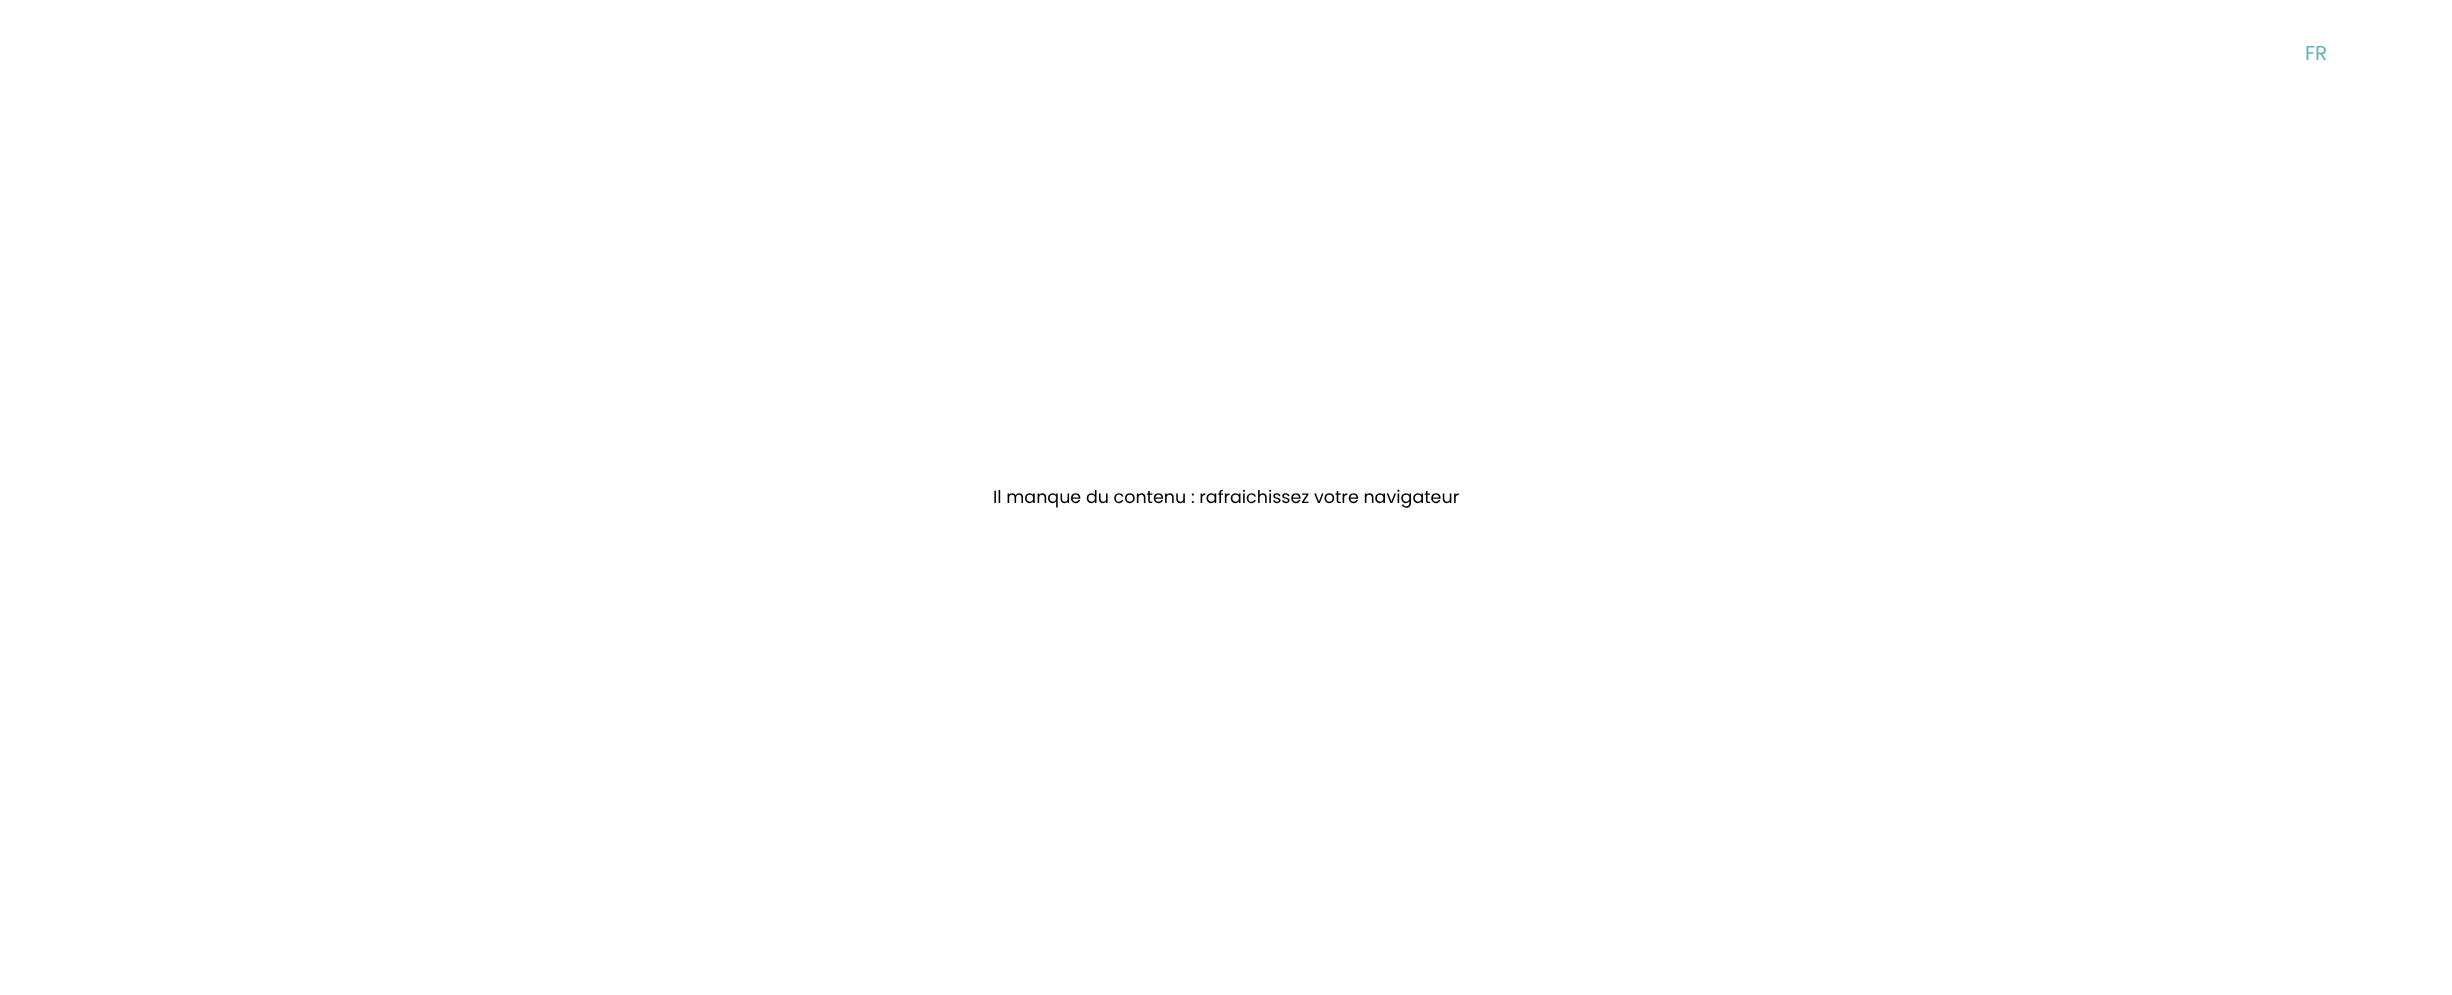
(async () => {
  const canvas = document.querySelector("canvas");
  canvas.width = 2452;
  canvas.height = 995;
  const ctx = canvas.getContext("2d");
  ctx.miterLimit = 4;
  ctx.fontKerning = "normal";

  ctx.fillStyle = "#ffffff";
  ctx.fillRect(0, 0, 2452, 995);
  ctx.font = "20px Poppins";
  ctx.fillStyle = "#65b1bd";
  ctx.fillText("FR", 2305, 60);
  ctx.font = "17.5px Poppins";
  ctx.fillStyle = "#000000";
  ctx.fillText("Il manque du contenu : rafraichissez votre navigateur", 993, 503);
})();
